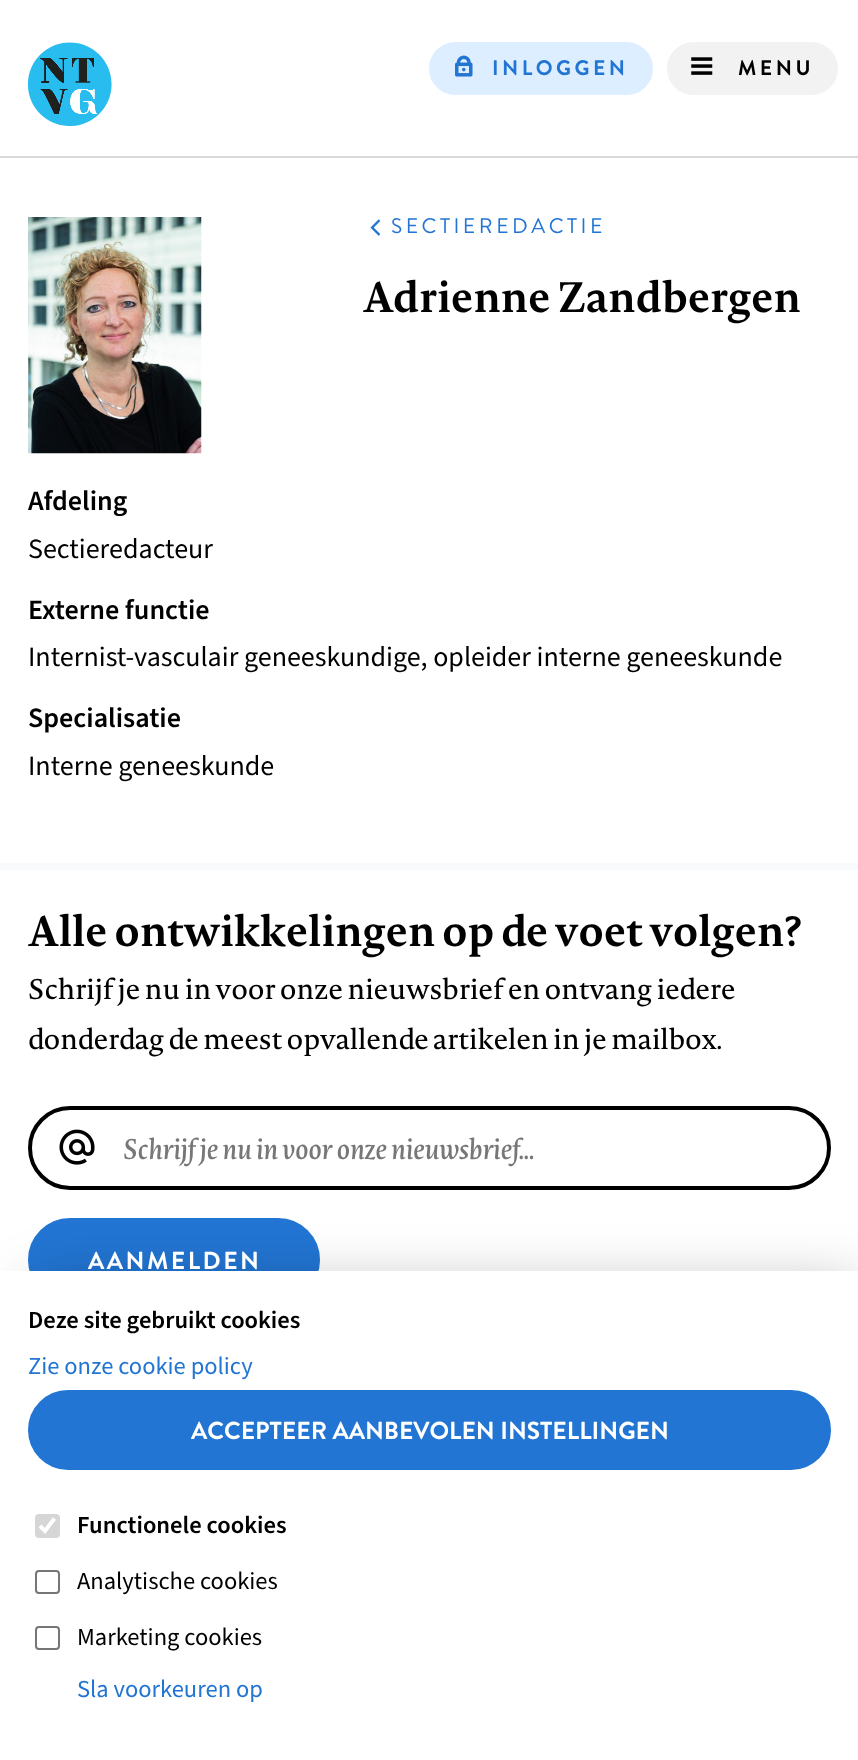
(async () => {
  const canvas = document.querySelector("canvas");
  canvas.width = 858;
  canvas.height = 1760;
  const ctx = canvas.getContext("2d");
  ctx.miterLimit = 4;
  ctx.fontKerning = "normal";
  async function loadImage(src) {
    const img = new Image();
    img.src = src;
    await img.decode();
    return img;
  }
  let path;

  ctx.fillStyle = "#ffffff";
  ctx.fillRect(0, 0, 858, 1760);
  ctx.drawImage(await loadImage("img/1.png"), 28, 42, 84, 84);
  ctx.fillStyle = "#dceeff";
  ctx.beginPath();
  ctx.roundRect(431, 44, 220, 49, 24.5);
  ctx.fill();
  ctx.strokeStyle = "#dceeff";
  ctx.lineWidth = 4;
  ctx.stroke();
  ctx.drawImage(await loadImage("img/2.png"), 455, 55, 18, 22);
  ctx.fillStyle = "#f2f2f2";
  ctx.beginPath();
  ctx.roundRect(669, 44, 167, 49, 24.5);
  ctx.fill();
  ctx.strokeStyle = "#f2f2f2";
  ctx.stroke();
  ctx.drawImage(await loadImage("img/3.png"), 691, 57, 22, 18);
  ctx.fillStyle = "#d9d9d9";
  ctx.fillRect(0, 156, 858, 2);
  ctx.drawImage(await loadImage("img/4.png"), 370, 219, 11, 17);
  ctx.drawImage(await loadImage("img/5.png"), 28, 217, 174, 237);
  ctx.fillStyle = "#f9fafb";
  ctx.fillRect(0, 863, 858, 7);
  ctx.beginPath();
  ctx.roundRect(30, 1108, 799, 80, 40);
  ctx.strokeStyle = "#000000";
  ctx.stroke();
  ctx.drawImage(await loadImage("img/6.png"), 59, 1129, 36, 36);
  ctx.fillStyle = "#2275d3";
  ctx.beginPath();
  ctx.roundRect(30, 1220, 288, 80, 40);
  ctx.fill();
  ctx.strokeStyle = "#2275d3";
  ctx.stroke();
  ctx.fillStyle = "rgba(0, 0, 0, 0.3)";
  ctx.filter = "blur(30px)";
  ctx.beginPath();
  ctx.rect(35, 1288, 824, 455);
  ctx.fill();
  ctx.filter = "none";
  ctx.fillStyle = "#ffffff";
  ctx.fillRect(0, 1271, 858, 489);
  ctx.fillStyle = "#2275d3";
  ctx.beginPath();
  ctx.roundRect(29, 1391, 801, 78, 39);
  ctx.fill();
  ctx.lineWidth = 2;
  ctx.stroke();
  ctx.fillStyle = "#d6d6d6";
  ctx.beginPath();
  ctx.roundRect(35, 1514, 25, 24, 4);
  ctx.fill();
  path = new Path2D("M40 1526L45 1531L54.5 1518.5");
  ctx.strokeStyle = "#ffffff";
  ctx.lineWidth = 3.9;
  ctx.stroke(path);
  ctx.beginPath();
  ctx.roundRect(36, 1571, 23, 22, 3);
  ctx.strokeStyle = "#767676";
  ctx.lineWidth = 2;
  ctx.stroke();
  ctx.beginPath();
  ctx.roundRect(36, 1627, 23, 22, 3);
  ctx.stroke();
  ctx.letterSpacing = "3.5px";
  ctx.font = "bold 21px Brandon Grotesque";
  ctx.fillStyle = "#2275d3";
  ctx.fillText("INLOGGEN", 492, 75);
  ctx.fillStyle = "#000000";
  ctx.fillText("MENU", 738, 75);
  ctx.font = "21px Brandon Grotesque";
  ctx.fillStyle = "#2275d3";
  ctx.fillText("SECTIEREDACTIE", 391, 233);
  ctx.letterSpacing = "-0.25px";
  ctx.font = "bold 42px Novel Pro";
  ctx.fillStyle = "#000000";
  ctx.fillText("Adrienne Zandbergen", 363, 312);
  ctx.letterSpacing = "0px";
  ctx.font = "600 28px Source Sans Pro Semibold";
  ctx.fillText("Afdeling", 28, 510);
  ctx.font = "28px Source Sans Pro";
  ctx.fillText("Sectieredacteur", 28, 558);
  ctx.font = "600 28px Source Sans Pro Semibold";
  ctx.fillText("Externe functie", 28, 619);
  ctx.font = "28px Source Sans Pro";
  ctx.fillText("Internist-vasculair geneeskundige, opleider interne geneeskunde", 28, 666);
  ctx.font = "600 28px Source Sans Pro Semibold";
  ctx.fillText("Specialisatie", 28, 727);
  ctx.font = "28px Source Sans Pro";
  ctx.fillText("Interne geneeskunde", 28, 775);
  ctx.letterSpacing = "-0.25px";
  ctx.font = "bold 42px Novel Pro";
  ctx.fillText("Alle ontwikkelingen op de voet volgen?", 28, 946);
  ctx.font = "28px Novel Pro";
  ctx.fillText("Schrijf je nu in voor onze nieuwsbrief en ontvang iedere", 28, 999);
  ctx.fillText("donderdag de meest opvallende artikelen in je mailbox.", 28, 1049);
  ctx.letterSpacing = "-0.45px";
  ctx.font = "italic 500 28px Novel Pro";
  ctx.fillStyle = "#777777";
  ctx.fillText("Schrijf je nu in voor onze nieuwsbrief...", 123, 1159);
  ctx.letterSpacing = "2.5px";
  ctx.font = "bold 24.5px Brandon Grotesque";
  ctx.fillStyle = "#ffffff";
  ctx.fillText("AANMELDEN", 88, 1269);
  ctx.letterSpacing = "0px";
  ctx.font = "600 24.5px Source Sans Pro Semibold";
  ctx.fillStyle = "#000000";
  ctx.fillText("Deze site gebruikt cookies", 28, 1328);
  ctx.font = "24.5px Source Sans Pro";
  ctx.fillStyle = "#2275d3";
  ctx.fillText("Zie onze cookie policy", 28, 1374);
  ctx.font = "bold 24.5px Brandon Grotesque";
  ctx.fillStyle = "#ffffff";
  ctx.fillText("ACCEPTEER AANBEVOLEN INSTELLINGEN", 191, 1439);
  ctx.font = "600 24.5px Source Sans Pro Semibold";
  ctx.fillStyle = "#000000";
  ctx.fillText("Functionele cookies", 77, 1533);
  ctx.font = "24.5px Source Sans Pro";
  ctx.fillText("Analytische cookies", 77, 1589);
  ctx.fillText("Marketing cookies", 77, 1645);
  ctx.fillStyle = "#2275d3";
  ctx.fillText("Sla voorkeuren op", 77, 1697);
})();
